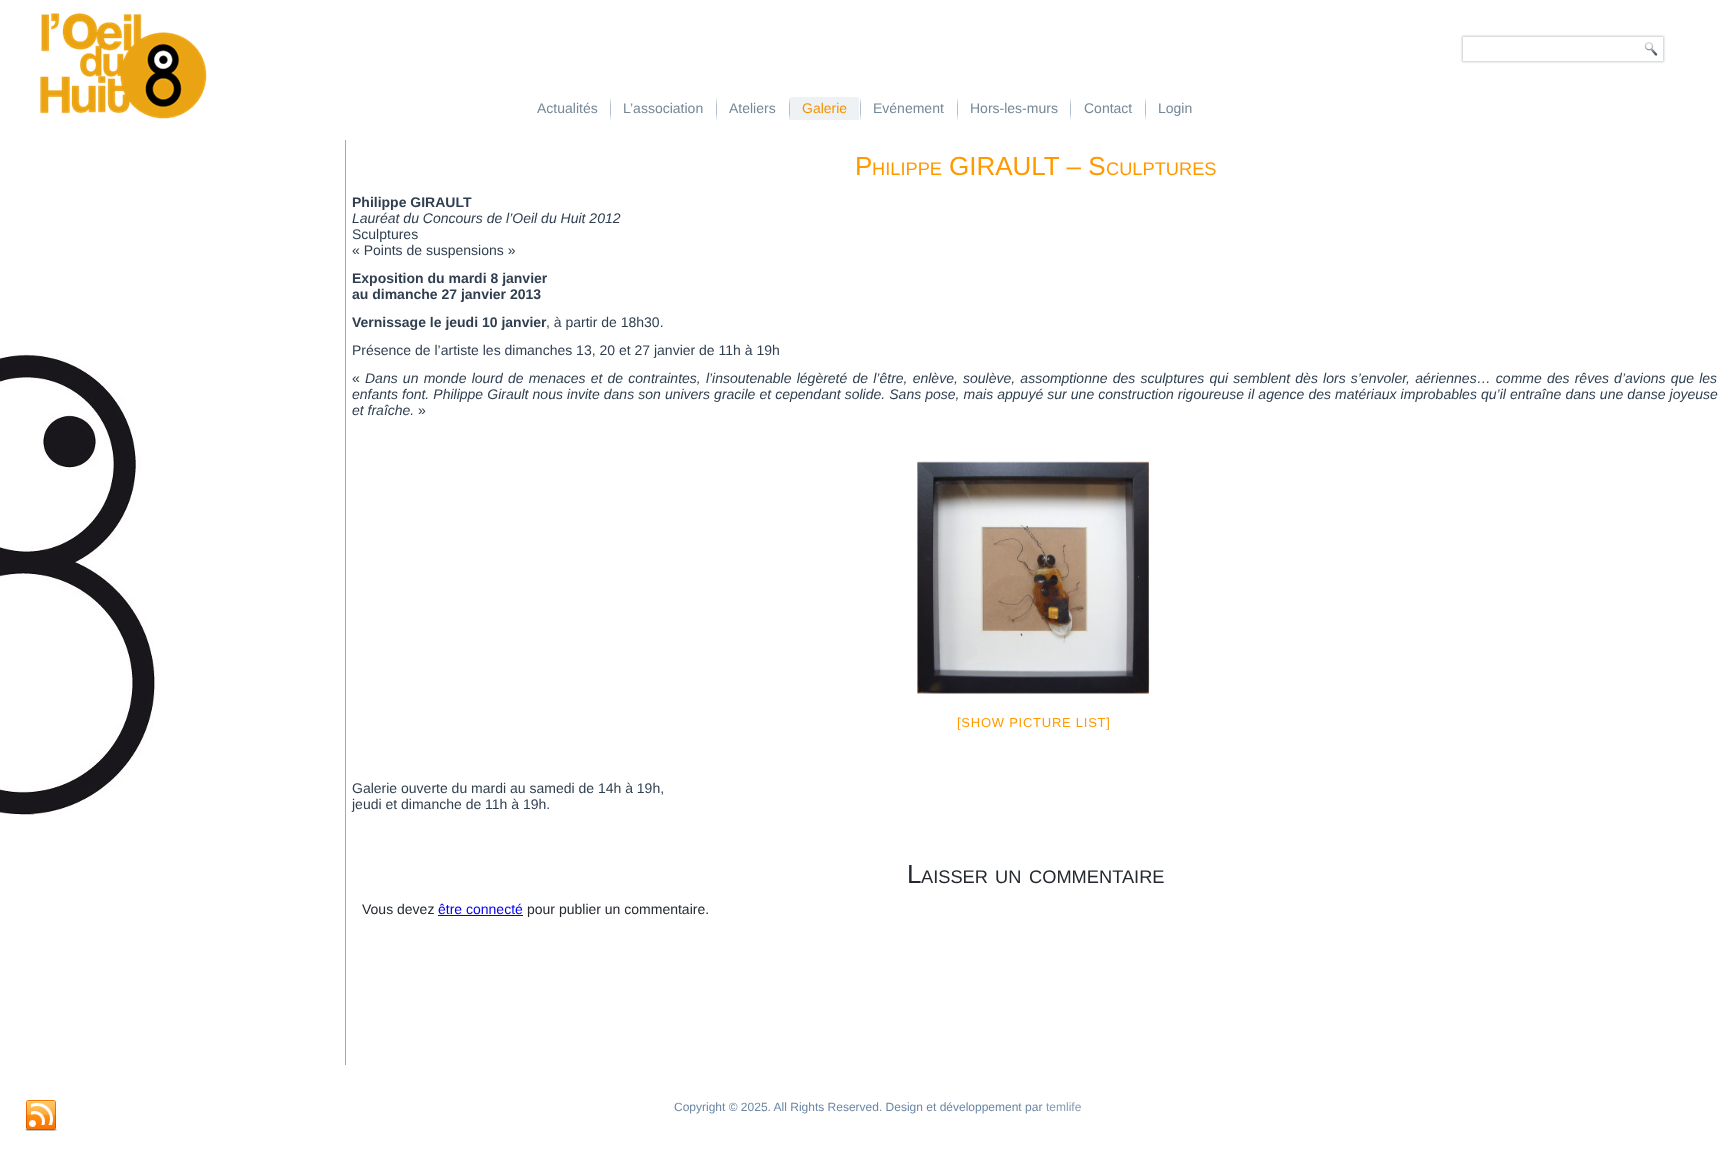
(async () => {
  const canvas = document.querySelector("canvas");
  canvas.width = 1723;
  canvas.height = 1157;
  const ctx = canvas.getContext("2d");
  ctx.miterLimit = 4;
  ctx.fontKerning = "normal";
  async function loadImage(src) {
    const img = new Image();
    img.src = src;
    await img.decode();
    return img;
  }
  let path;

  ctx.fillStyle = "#ffffff";
  ctx.fillRect(0, 0, 1723, 1157);
  ctx.drawImage(await loadImage("img/1.png"), 0, 351, 160, 464);
  ctx.drawImage(await loadImage("img/2.png"), 40, 13, 167, 106);
  ctx.save();
  path = new Path2D("M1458 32H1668V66H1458ZM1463 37H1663V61H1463Z");
  ctx.clip(path, "evenodd");
  ctx.fillStyle = "rgba(0, 0, 0, 0.2)";
  ctx.filter = "blur(1px)";
  ctx.beginPath();
  ctx.rect(1462, 36, 202, 26);
  ctx.fill();
  ctx.filter = "none";
  ctx.restore();
  ctx.drawImage(await loadImage("img/3.png"), 1644, 42, 14, 14);
  ctx.drawImage(await loadImage("img/4.png"), 610, 98, 1, 22);
  ctx.drawImage(await loadImage("img/4.png"), 716, 98, 1, 22);
  ctx.drawImage(await loadImage("img/4.png"), 789, 98, 1, 22);
  ctx.fillStyle = "#eff2f5";
  ctx.beginPath();
  ctx.roundRect(790, 97, 69, 23, [2, 2, 0, 0]);
  ctx.fill();
  ctx.drawImage(await loadImage("img/4.png"), 860, 98, 1, 22);
  ctx.drawImage(await loadImage("img/4.png"), 957, 98, 1, 22);
  ctx.drawImage(await loadImage("img/4.png"), 1070, 98, 1, 22);
  ctx.drawImage(await loadImage("img/4.png"), 1145, 98, 1, 22);
  ctx.fillStyle = "#eaa312";
  ctx.fillRect(345, 140, 1, 925);
  ctx.drawImage(await loadImage("img/5.png"), 917, 461, 233, 233);
  ctx.fillStyle = "#0000ee";
  ctx.fillRect(438, 915, 85, 1);
  ctx.drawImage(await loadImage("img/6.png"), 25, 1100, 32, 31);
  ctx.font = "14px Liberation Sans";
  ctx.fillStyle = "#758799";
  for (const [text, x, y] of [
    ["Actualités", 537, 113],
    ["L’association", 623, 113],
    ["Ateliers", 729, 113],
  ]) {
    ctx.fillText(text, x, y);
  }
  ctx.fillStyle = "#f59300";
  ctx.fillText("Galerie", 802, 113);
  ctx.fillStyle = "#758799";
  for (const [text, x, y] of [
    ["Evénement", 873, 113],
    ["Hors-les-murs", 970, 113],
    ["Contact", 1084, 113],
    ["Login", 1158, 113],
  ]) {
    ctx.fillText(text, x, y);
  }
  ctx.font = "26px Liberation Sans";
  ctx.fillStyle = "#ff9900";
  ctx.fillText("P", 855, 175);
  ctx.font = "18.25px Liberation Sans";
  ctx.fillText("HILIPPE", 872, 175);
  ctx.font = "26px Liberation Sans";
  ctx.fillText("GIRAULT – S", 949, 175);
  ctx.font = "18.25px Liberation Sans";
  ctx.fillText("CULPTURES", 1106, 175);
  ctx.font = "bold 14px Liberation Sans";
  ctx.fillStyle = "#303f50";
  ctx.fillText("Philippe GIRAULT", 352, 207);
  ctx.font = "italic 14px Liberation Sans";
  ctx.fillText("Lauréat du Concours de l’Oeil du Huit 2012", 352, 223);
  ctx.font = "14px Liberation Sans";
  ctx.fillText("Sculptures", 352, 239);
  ctx.fillText("« Points de suspensions »", 352, 255);
  ctx.font = "bold 14px Liberation Sans";
  for (const [text, x, y] of [
    ["Exposition du mardi 8 janvier", 352, 283],
    ["au dimanche 27 janvier 2013", 352, 299],
    ["Vernissage le jeudi 10 janvier", 352, 327],
  ]) {
    ctx.fillText(text, x, y);
  }
  ctx.font = "14px Liberation Sans";
  for (const [text, x, y] of [
    [", à partir de 18h30.", 546, 327],
    ["Présence de l’artiste les dimanches 13, 20 et 27 janvier de 11h à 19h", 352, 355],
    ["«", 352, 383],
  ]) {
    ctx.fillText(text, x, y);
  }
  ctx.wordSpacing = "1.3px";
  ctx.font = "italic 14px Liberation Sans";
  ctx.fillText("Dans un monde lourd de menaces et de contraintes, l’insoutenable légèreté de l’être, enlève, soulève, assomptionne des sculptures qui semblent dès lors s’envoler, aériennes… comme des rêves d’avions que les", 365, 383);
  ctx.wordSpacing = "0.2px";
  ctx.fillText("enfants font. Philippe Girault nous invite dans son univers gracile et cependant solide. Sans pose, mais appuyé sur une construction rigoureuse il agence des matériaux improbables qu’il entraîne dans une danse joyeuse", 352, 399);
  ctx.wordSpacing = "0px";
  ctx.fillText("et fraîche.", 352, 415);
  ctx.font = "14px Liberation Sans";
  ctx.fillText("»", 418, 415);
  ctx.letterSpacing = "0.75px";
  ctx.font = "13px Liberation Sans";
  ctx.fillStyle = "#ff9900";
  ctx.fillText("[SHOW PICTURE LIST]", 957, 727);
  ctx.letterSpacing = "0px";
  ctx.font = "14px Liberation Sans";
  ctx.fillStyle = "#303f50";
  ctx.fillText("Galerie ouverte du mardi au samedi de 14h à 19h,", 352, 793);
  ctx.fillText("jeudi et dimanche de 11h à 19h.", 352, 809);
  ctx.font = "26px Liberation Sans";
  ctx.fillStyle = "#23292f";
  ctx.fillText("L", 907, 883);
  ctx.font = "18.25px Liberation Sans";
  for (const [text, x, y] of [
    ["AISSER", 921, 883],
    ["UN", 995, 883],
    ["COMMENTAIRE", 1029, 883],
  ]) {
    ctx.fillText(text, x, y);
  }
  ctx.font = "14px Liberation Sans";
  ctx.fillText("Vous devez", 362, 914);
  ctx.fillStyle = "#0000ee";
  ctx.fillText("être connecté", 438, 914);
  ctx.fillStyle = "#23292f";
  ctx.fillText("pour publier un commentaire.", 527, 914);
  ctx.font = "12px Liberation Sans";
  ctx.fillStyle = "#6986a5";
  ctx.fillText("Copyright © 2025. All Rights Reserved. Design et développement par", 674, 1111);
  ctx.fillStyle = "#839bb4";
  ctx.fillText("temlife", 1046, 1111);
})();
